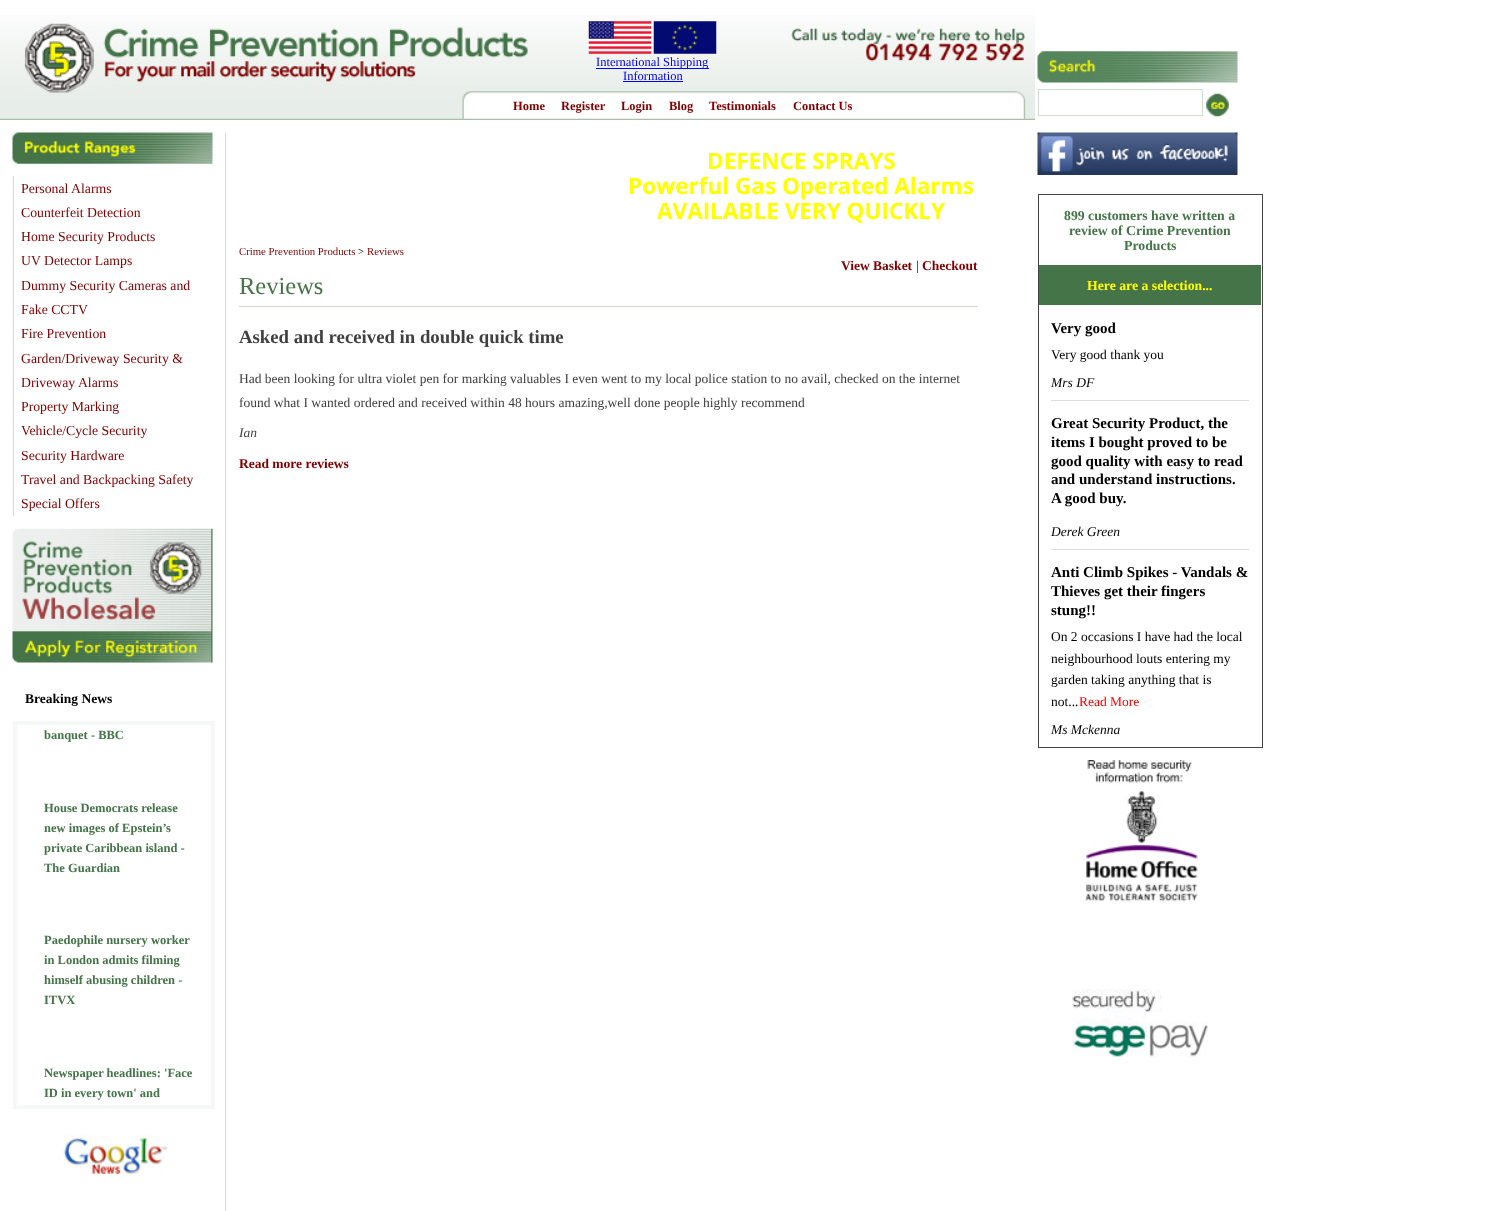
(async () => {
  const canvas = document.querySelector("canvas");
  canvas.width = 1487;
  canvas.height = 1211;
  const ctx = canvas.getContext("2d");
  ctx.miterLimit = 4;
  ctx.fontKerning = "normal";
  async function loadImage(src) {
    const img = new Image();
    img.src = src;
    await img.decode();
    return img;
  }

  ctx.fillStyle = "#ffffff";
  ctx.fillRect(0, 0, 1487, 1211);
  ctx.drawImage(await loadImage("img/1.png"), 0, 15, 1035, 105);
  ctx.drawImage(await loadImage("img/2.png"), 1037, 51, 201, 32);
  ctx.strokeStyle = "#d0dcd1";
  ctx.strokeRect(1038.5, 89.5, 164, 26);
  ctx.drawImage(await loadImage("img/3.png"), 1206, 93, 23, 24);
  ctx.drawImage(await loadImage("img/4.png"), 588, 21, 64, 33);
  ctx.drawImage(await loadImage("img/5.png"), 653, 21, 64, 33);
  ctx.fillStyle = "#0000ee";
  ctx.fillRect(596, 68, 113, 1);
  ctx.fillRect(623, 81, 60, 1);
  ctx.drawImage(await loadImage("img/6.png"), 12, 132, 201, 32);
  ctx.fillStyle = "#d0dcd1";
  ctx.fillRect(13, 176, 1, 340);
  ctx.drawImage(await loadImage("img/7.png"), 12, 528, 201, 135);
  ctx.strokeStyle = "#f6f8f7";
  ctx.lineWidth = 4;
  ctx.strokeRect(15, 723, 198, 384);
  ctx.drawImage(await loadImage("img/8.png"), 63, 1134, 107, 40);
  ctx.fillRect(225, 133, 1, 1078);
  ctx.fillRect(239, 306, 739, 1);
  ctx.drawImage(await loadImage("img/9.png"), 1037, 132, 201, 43);
  ctx.strokeStyle = "#444444";
  ctx.lineWidth = 1;
  ctx.strokeRect(1038.5, 194.5, 224, 553);
  for (const [x, y, w, h, color] of [
    [1039, 265, 222, 40, "#457449"],
    [1051, 400, 198, 1, "#dddddd"],
    [1051, 549, 198, 1, "#dddddd"],
  ]) {
    ctx.fillStyle = color;
    ctx.fillRect(x, y, w, h);
  }
  ctx.drawImage(await loadImage("img/10.png"), 1085, 760, 113, 142);
  ctx.drawImage(await loadImage("img/11.png"), 1072, 989, 136, 68);
  ctx.font = "12.5px Liberation Serif";
  ctx.fillStyle = "#0000ee";
  ctx.fillText("International Shipping", 596, 66);
  ctx.fillText("Information", 623, 80);
  ctx.font = "bold 12.5px Liberation Serif";
  ctx.fillStyle = "#7f0000";
  for (const [text, x, y] of [
    ["Home", 513, 110],
    ["Register", 561, 110],
    ["Login", 621, 110],
    ["Blog", 669, 110],
    ["Testimonials", 709, 110],
    ["Contact Us", 793, 110],
  ]) {
    ctx.fillText(text, x, y);
  }
  ctx.font = "13.75px Liberation Serif";
  for (const [text, x, y] of [
    ["Personal Alarms", 21, 193],
    ["Counterfeit Detection", 21, 217],
    ["Home Security Products", 21, 241],
    ["UV Detector Lamps", 21, 265],
    ["Dummy Security Cameras and", 21, 290],
    ["Fake CCTV", 21, 314],
    ["Fire Prevention", 21, 338],
    ["Garden/Driveway Security &", 21, 363],
    ["Driveway Alarms", 21, 387],
    ["Property Marking", 21, 411],
    ["Vehicle/Cycle Security", 21, 435],
    ["Security Hardware", 21, 460],
    ["Travel and Backpacking Safety", 21, 484],
    ["Special Offers", 21, 508],
  ]) {
    ctx.fillText(text, x, y);
  }
  ctx.font = "bold 13.5px Liberation Serif";
  ctx.fillStyle = "#000000";
  ctx.fillText("Breaking News", 25, 703);
  ctx.font = "bold 12.5px Liberation Serif";
  ctx.fillStyle = "#457449";
  for (const [text, x, y] of [
    ["banquet - BBC", 44, 739],
    ["House Democrats release", 44, 812],
    ["new images of Epstein’s", 44, 832],
    ["private Caribbean island -", 44, 852],
    ["The Guardian", 44, 872],
    ["Paedophile nursery worker", 44, 944],
    ["in London admits filming", 44, 964],
    ["himself abusing children -", 44, 984],
    ["ITVX", 44, 1004],
    ["Newspaper headlines: 'Face", 44, 1077],
    ["ID in every town' and", 44, 1097],
  ]) {
    ctx.fillText(text, x, y);
  }
  ctx.font = "bold 22.5px Open Sans";
  ctx.fillStyle = "#ffff00";
  for (const [text, x, y] of [
    ["DEFENCE SPRAYS", 707, 169],
    ["Powerful Gas Operated Alarms", 628, 194],
    ["AVAILABLE VERY QUICKLY", 657, 219],
  ]) {
    ctx.fillText(text, x, y);
  }
  ctx.font = "10.75px Liberation Serif";
  ctx.fillStyle = "#7f0000";
  ctx.fillText("Crime Prevention Products", 239, 255);
  ctx.fillStyle = "#000000";
  ctx.fillText(">", 358, 255);
  ctx.fillStyle = "#7f0000";
  ctx.fillText("Reviews", 367, 255);
  ctx.font = "bold 13.5px Liberation Serif";
  ctx.fillText("View Basket", 841, 270);
  ctx.font = "13.5px Liberation Serif";
  ctx.fillStyle = "#000000";
  ctx.fillText("|", 916, 270);
  ctx.font = "bold 13.5px Liberation Serif";
  ctx.fillStyle = "#7f0000";
  ctx.fillText("Checkout", 922, 270);
  ctx.font = "24.5px Liberation Serif";
  ctx.fillStyle = "#457449";
  ctx.fillText("Reviews", 239, 294);
  ctx.font = "bold 18.75px Liberation Serif";
  ctx.fillStyle = "#404040";
  ctx.fillText("Asked and received in double quick time", 239, 343);
  ctx.font = "13.5px Liberation Serif";
  ctx.fillText("Had been looking for ultra violet pen for marking valuables I even went to my local police station to no avail, checked on the internet", 239, 383);
  ctx.fillText("found what I wanted ordered and received within 48 hours amazing,well done people highly recommend", 239, 407);
  ctx.font = "italic 13.5px Liberation Serif";
  ctx.fillText("Ian", 239, 437);
  ctx.font = "bold 13.5px Liberation Serif";
  ctx.fillStyle = "#7f0000";
  ctx.fillText("Read more reviews", 239, 468);
  ctx.font = "bold 13.75px Liberation Serif";
  ctx.fillStyle = "#457449";
  for (const [text, x, y] of [
    ["899 customers have written a", 1064, 220],
    ["review of Crime Prevention", 1069, 235],
    ["Products", 1124, 250],
  ]) {
    ctx.fillText(text, x, y);
  }
  ctx.fillStyle = "#ffff00";
  ctx.fillText("Here are a selection...", 1087, 290);
  ctx.font = "bold 15px Liberation Serif";
  ctx.fillStyle = "#000000";
  ctx.fillText("Very good", 1051, 333);
  ctx.font = "13.5px Liberation Serif";
  ctx.fillText("Very good thank you", 1051, 359);
  ctx.font = "italic 13.5px Liberation Serif";
  ctx.fillText("Mrs DF", 1051, 387);
  ctx.font = "bold 15px Liberation Serif";
  for (const [text, x, y] of [
    ["Great Security Product, the", 1051, 428],
    ["items I bought proved to be", 1051, 447],
    ["good quality with easy to read", 1051, 466],
    ["and understand instructions.", 1051, 484],
    ["A good buy.", 1051, 503],
  ]) {
    ctx.fillText(text, x, y);
  }
  ctx.font = "italic 13.5px Liberation Serif";
  ctx.fillText("Derek Green", 1051, 536);
  ctx.font = "bold 15px Liberation Serif";
  for (const [text, x, y] of [
    ["Anti Climb Spikes - Vandals &", 1051, 577],
    ["Thieves get their fingers", 1051, 596],
    ["stung!!", 1051, 615],
  ]) {
    ctx.fillText(text, x, y);
  }
  ctx.font = "13.5px Liberation Serif";
  for (const [text, x, y] of [
    ["On 2 occasions I have had the local", 1051, 641],
    ["neighbourhood louts entering my", 1051, 663],
    ["garden taking anything that is", 1051, 684],
    ["not...", 1051, 706],
  ]) {
    ctx.fillText(text, x, y);
  }
  ctx.fillStyle = "#ff0000";
  ctx.fillText("Read More", 1079, 706);
  ctx.font = "italic 13.5px Liberation Serif";
  ctx.fillStyle = "#000000";
  ctx.fillText("Ms Mckenna", 1051, 734);
})();
